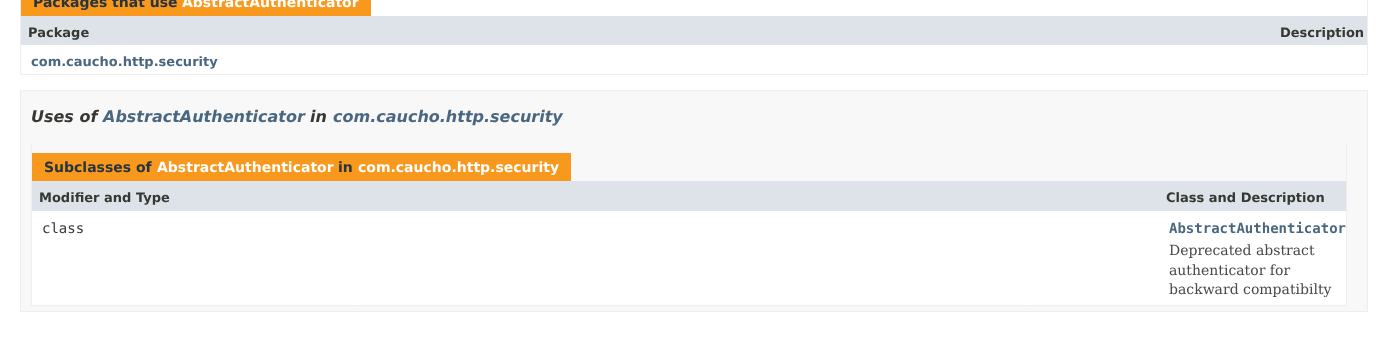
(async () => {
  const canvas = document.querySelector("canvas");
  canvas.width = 1388;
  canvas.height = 340;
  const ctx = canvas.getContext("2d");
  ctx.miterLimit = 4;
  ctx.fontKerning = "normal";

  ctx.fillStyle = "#ffffff";
  ctx.fillRect(0, 0, 1388, 340);
  for (const [x, y, w, h, color] of [
    [1367, 0, 1, 75, "#eeeeee"],
    [20, 74, 1348, 1, "#eeeeee"],
    [20, 0, 1, 75, "#eeeeee"],
    [21, 0, 350, 16, "#f8981d"],
    [21, 16, 1346, 29, "#dee3e9"],
  ]) {
    ctx.fillStyle = color;
    ctx.fillRect(x, y, w, h);
  }
  ctx.fillStyle = "#f8f8f8";
  ctx.beginPath();
  ctx.rect(20.5, 90.5, 1347, 221);
  ctx.fill();
  ctx.strokeStyle = "#ededed";
  ctx.stroke();
  for (const [x, y, w, h, color] of [
    [1346, 143, 1, 163, "#eeeeee"],
    [31, 305, 1316, 1, "#eeeeee"],
    [31, 143, 1, 163, "#eeeeee"],
    [32, 153, 539, 28, "#f8981d"],
    [32, 181, 1314, 30, "#dee3e9"],
    [32, 211, 1314, 94, "#ffffff"],
  ]) {
    ctx.fillStyle = color;
    ctx.fillRect(x, y, w, h);
  }
  ctx.font = "bold 14px DejaVu Sans";
  ctx.fillStyle = "#253441";
  ctx.fillText("Packages that use", 33, 7);
  ctx.fillStyle = "#ffffff";
  ctx.fillText("AbstractAuthenticator", 182, 7);
  ctx.font = "bold 13px DejaVu Sans";
  ctx.fillStyle = "#353833";
  ctx.fillText("Package", 28, 37);
  ctx.fillText("Description", 1280, 37);
  ctx.fillStyle = "#4a6782";
  ctx.fillText("com.caucho.http.security", 31, 66);
  ctx.font = "italic bold 16px DejaVu Sans";
  ctx.fillStyle = "#353833";
  ctx.fillText("Uses of", 31, 122);
  ctx.fillStyle = "#4a6782";
  ctx.fillText("AbstractAuthenticator", 103, 122);
  ctx.fillStyle = "#353833";
  ctx.fillText("in", 310, 122);
  ctx.fillStyle = "#4a6782";
  ctx.fillText("com.caucho.http.security", 333, 122);
  ctx.font = "bold 14px DejaVu Sans";
  ctx.fillStyle = "#253441";
  ctx.fillText("Subclasses of", 44, 172);
  ctx.fillStyle = "#ffffff";
  ctx.fillText("AbstractAuthenticator", 157, 172);
  ctx.fillStyle = "#253441";
  ctx.fillText("in", 338, 172);
  ctx.fillStyle = "#ffffff";
  ctx.fillText("com.caucho.http.security", 358, 172);
  ctx.font = "bold 13px DejaVu Sans";
  ctx.fillStyle = "#353833";
  ctx.fillText("Modifier and Type", 39, 202);
  ctx.fillText("Class and Description", 1166, 202);
  ctx.font = "14px DejaVu Sans Mono";
  ctx.fillText("class", 42, 233);
  ctx.font = "bold 14px DejaVu Sans Mono";
  ctx.fillStyle = "#4a6782";
  ctx.fillText("AbstractAuthenticator", 1169, 233);
  ctx.font = "14px DejaVu Serif";
  ctx.fillStyle = "#474747";
  for (const [text, x, y] of [
    ["Deprecated abstract", 1169, 255],
    ["authenticator for", 1169, 275],
    ["backward compatibilty", 1169, 294],
  ]) {
    ctx.fillText(text, x, y);
  }
})();
